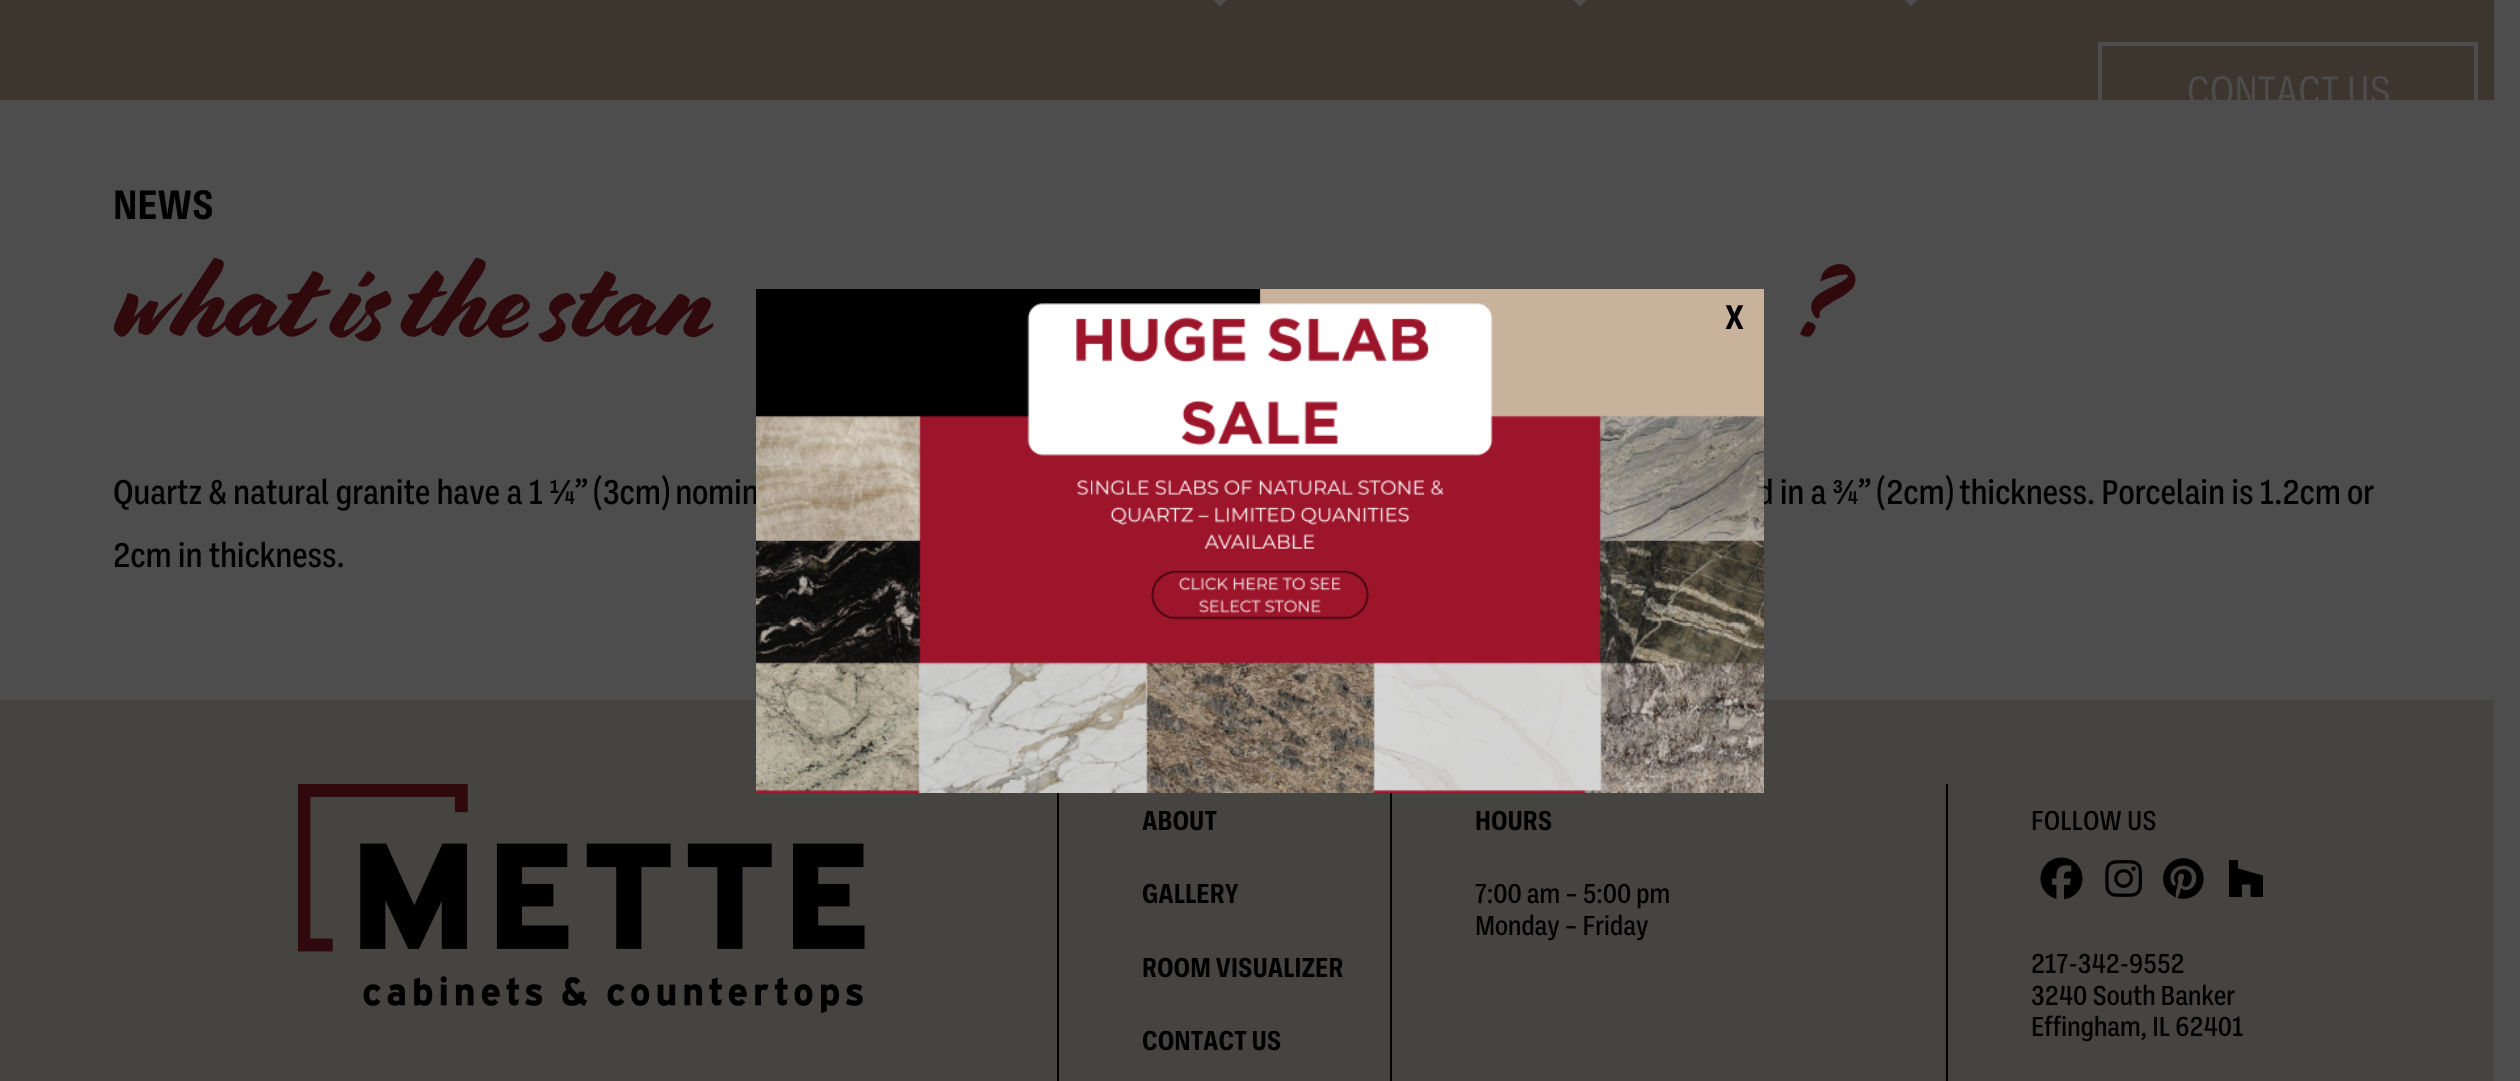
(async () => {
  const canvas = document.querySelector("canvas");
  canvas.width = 2520;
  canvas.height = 1081;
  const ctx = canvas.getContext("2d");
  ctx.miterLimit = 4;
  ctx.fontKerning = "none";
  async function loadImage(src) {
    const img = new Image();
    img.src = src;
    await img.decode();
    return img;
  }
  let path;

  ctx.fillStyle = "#4d4d4d";
  ctx.fillRect(0, 0, 2520, 1081);
  ctx.fillStyle = "#3c362f";
  ctx.fillRect(0, 0, 2494, 100);
  ctx.fillStyle = "#4d4d4d";
  path = new Path2D("M1209-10L1220 .5L1230-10L1234.5-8L1220 6.5L1205-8Z");
  ctx.fill(path);
  path = new Path2D("M1570-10L1580 .5L1591-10L1595-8L1580 6.5L1565.5-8Z");
  ctx.fill(path);
  path = new Path2D("M1900.5-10L1911 .5L1921.5-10L1925.5-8L1911 6.5L1896.5-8Z");
  ctx.fill(path);
  ctx.strokeStyle = "#4d4d4d";
  ctx.lineWidth = 4;
  ctx.strokeRect(2100, 44, 376, 84);
  ctx.fillStyle = "#464441";
  ctx.fillRect(0, 700, 2494, 381);
  ctx.drawImage(await loadImage("img/1.png"), 298, 784, 567, 229);
  for (const [x, y, w, h, color] of [
    [1057, 793, 2, 288, "#000000"],
    [1390, 793, 2, 288, "#000000"],
    [1946, 784, 2, 297, "#000000"],
  ]) {
    ctx.fillStyle = color;
    ctx.fillRect(x, y, w, h);
  }
  ctx.drawImage(await loadImage("img/2.png"), 2040, 857, 43, 43);
  ctx.drawImage(await loadImage("img/3.png"), 2105, 860, 37, 37);
  ctx.drawImage(await loadImage("img/4.png"), 2163, 858, 41, 41);
  path = new Path2D("M2250.5 884.5H2242H2250.5H2242V897H2229V860H2238V868.5L2263 875.5V897H2250.5Z");
  ctx.fill(path);
  ctx.font = "42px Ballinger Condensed";
  ctx.fillStyle = "#4d4d4d";
  ctx.fillText("CONTACT US", 2187, 105);
  ctx.font = "bold 42px Ballinger Condensed";
  ctx.fillStyle = "#000000";
  ctx.fillText("NEWS", 113, 219);
  ctx.wordSpacing = "-4px";
  ctx.font = "112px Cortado";
  ctx.fillStyle = "#30090d";
  ctx.fillText("what is the stan", 113, 334);
  ctx.fillText("?", 1800, 334);
  ctx.wordSpacing = "0px";
  ctx.font = "500 35px Ballinger Condensed";
  ctx.fillStyle = "#000000";
  for (const [text, x, y] of [
    ["Quartz & natural granite have a 1 ¼” (3cm) nomin", 113, 504],
    ["d in a ¾” (2cm) thickness. Porcelain is 1.2cm or", 1757, 504],
    ["2cm in thickness.", 113, 567],
  ]) {
    ctx.fillText(text, x, y);
  }
  ctx.font = "bold 28px Ballinger Condensed";
  for (const [text, x, y] of [
    ["ABOUT", 1142, 830],
    ["GALLERY", 1142, 903],
    ["ROOM VISUALIZER", 1142, 977],
    ["CONTACT US", 1142, 1050],
    ["HOURS", 1475, 830],
  ]) {
    ctx.fillText(text, x, y);
  }
  ctx.font = "500 28px Ballinger Condensed";
  for (const [text, x, y] of [
    ["7:00 am – 5:00 pm", 1475, 903],
    ["Monday – Friday", 1475, 935],
    ["FOLLOW US", 2031, 830],
    ["217-342-9552", 2031, 973],
    ["3240 South Banker", 2031, 1005],
    ["Effingham, IL 62401", 2031, 1036],
  ]) {
    ctx.fillText(text, x, y);
  }
  ctx.drawImage(await loadImage("img/5.png"), 756, 289, 1008, 504);
  ctx.font = "bold 35px Ballinger Condensed";
  ctx.fillText("X", 1725, 329);
})();
